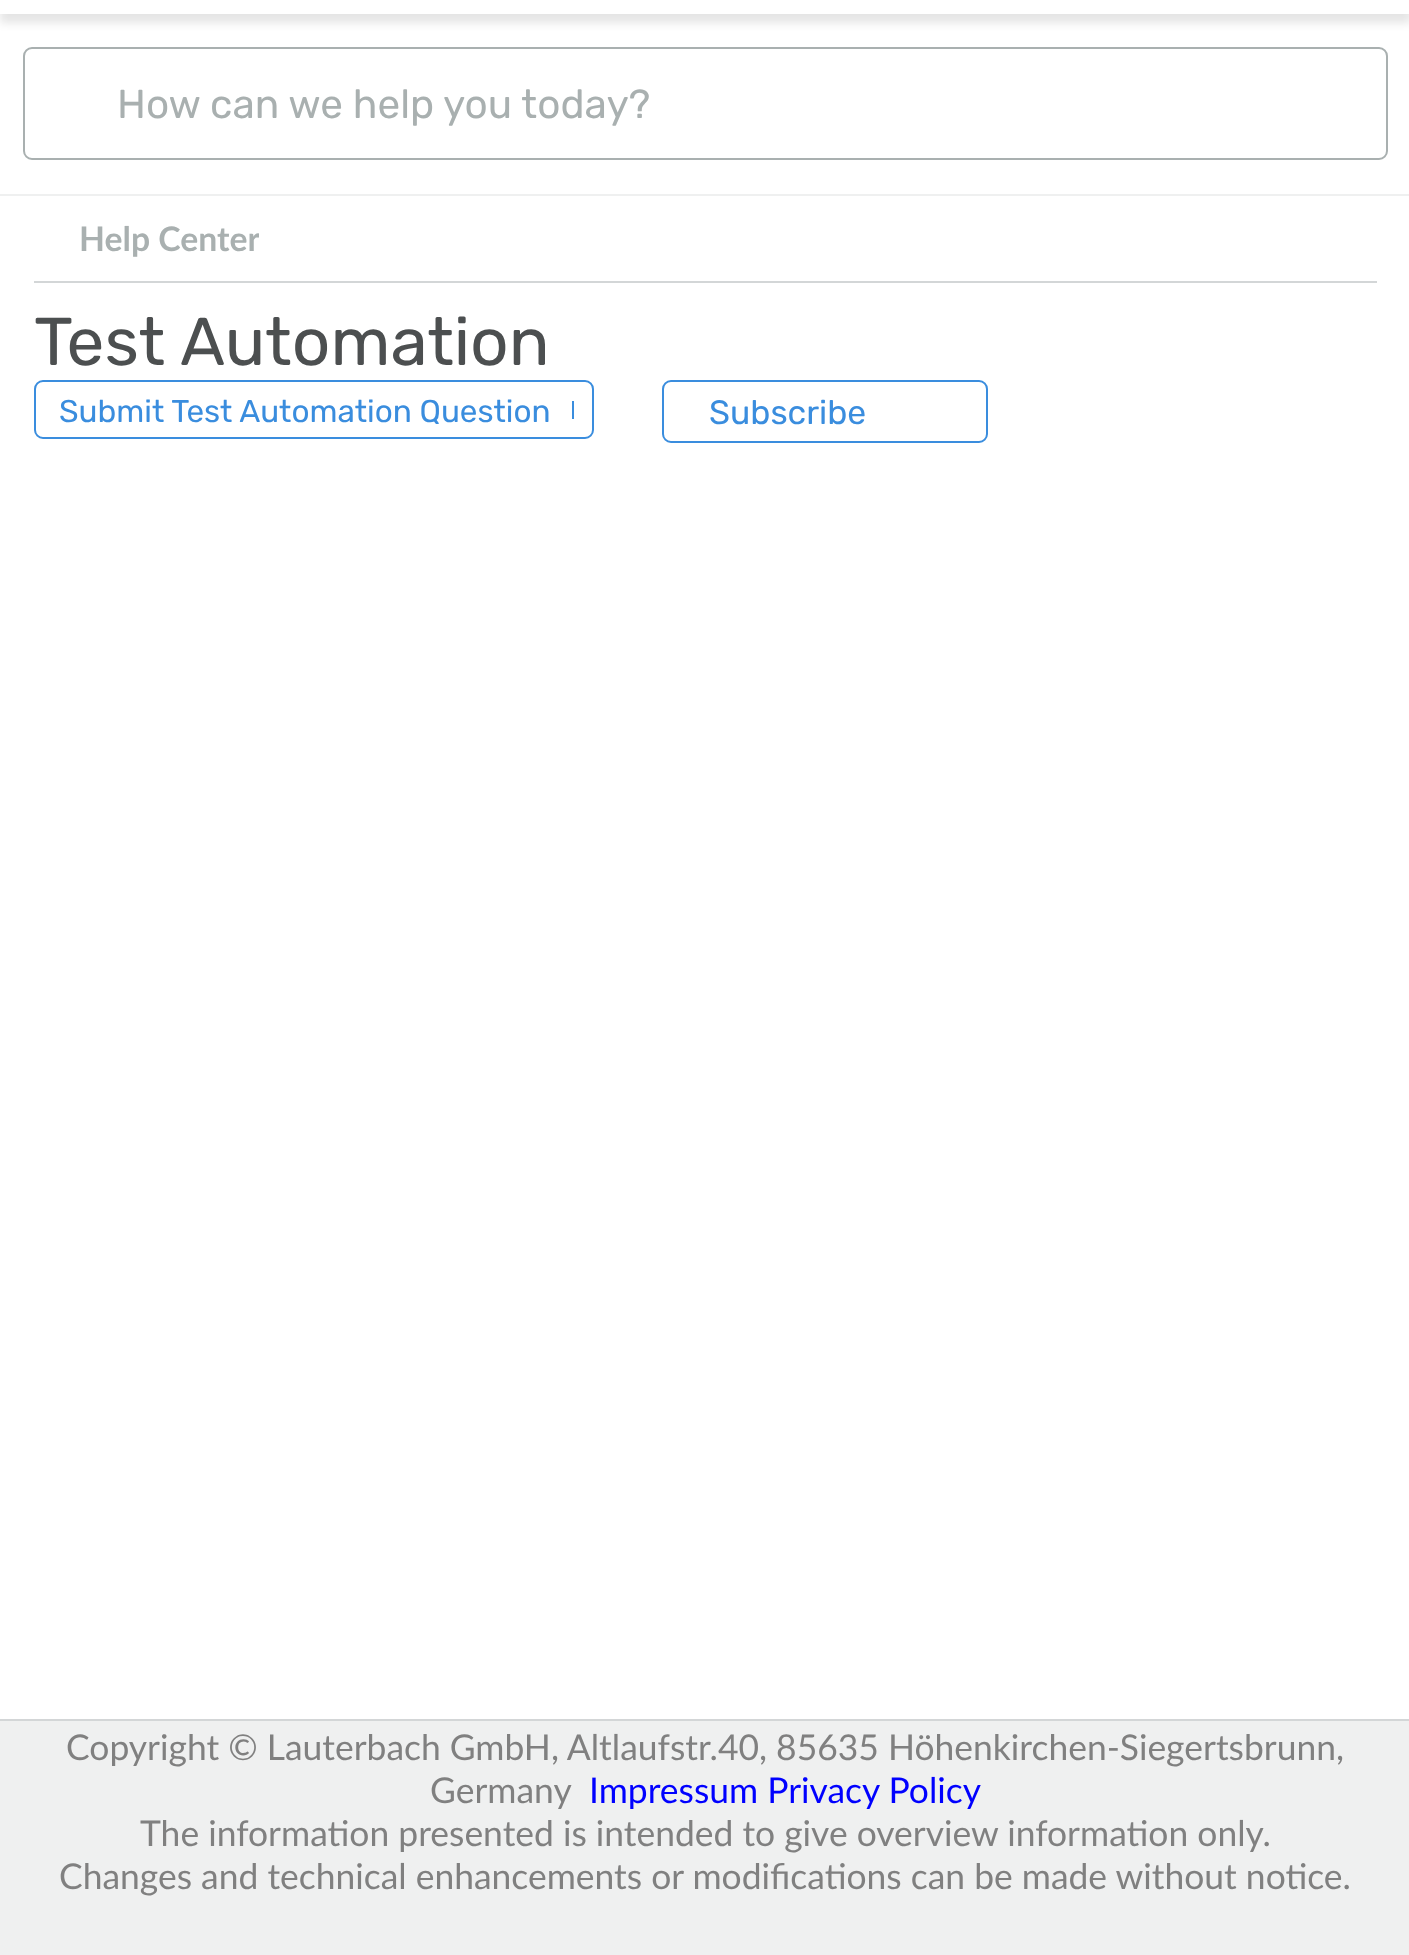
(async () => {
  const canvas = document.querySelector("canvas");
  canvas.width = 1409;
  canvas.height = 1955;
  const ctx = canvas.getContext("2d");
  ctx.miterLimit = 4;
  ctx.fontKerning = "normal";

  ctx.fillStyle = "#ffffff";
  ctx.fillRect(0, 0, 1409, 1955);
  ctx.fillStyle = "rgba(0, 0, 0, 0.1)";
  ctx.filter = "blur(4.5px)";
  ctx.beginPath();
  ctx.rect(0, -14, 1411, 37);
  ctx.fill();
  ctx.filter = "none";
  ctx.fillStyle = "#ffffff";
  ctx.fillRect(0, 0, 1409, 14);
  ctx.fillStyle = "#eff0f0";
  ctx.fillRect(0, 194, 1409, 2);
  ctx.beginPath();
  ctx.roundRect(24, 48, 1363, 111, 8);
  ctx.strokeStyle = "#a9b0b0";
  ctx.lineWidth = 2;
  ctx.stroke();
  ctx.fillStyle = "#d3d6d7";
  ctx.fillRect(34, 281, 1343, 2);
  ctx.beginPath();
  ctx.roundRect(35, 381, 558, 57, 8);
  ctx.strokeStyle = "#3a8dde";
  ctx.stroke();
  ctx.fillStyle = "#3a8dde";
  ctx.fillRect(572, 401, 2, 18);
  ctx.beginPath();
  ctx.roundRect(663, 381, 324, 61, 8);
  ctx.stroke();
  ctx.fillStyle = "#eff0f0";
  ctx.fillRect(0, 1721, 1409, 234);
  ctx.fillStyle = "#d3d6d7";
  ctx.fillRect(0, 1719, 1409, 2);
  ctx.font = "40.5px Rubik";
  ctx.fillStyle = "#a9b0b0";
  ctx.fillText("How can we help you today?", 117, 118);
  ctx.save();
  ctx.beginPath();
  ctx.rect(79, 191, 180, 90);
  ctx.clip();
  ctx.font = "bold 33.75px Lato";
  ctx.fillText("Help Center", 79, 251);
  ctx.restore();
  ctx.font = "67.5px Rubik";
  ctx.fillStyle = "#4c4f50";
  ctx.fillText("Test Automation", 34, 365);
  ctx.font = "31.5px Rubik";
  ctx.fillStyle = "#3a8dde";
  ctx.fillText("Submit Test Automation Question", 59, 422);
  ctx.font = "33.75px Rubik";
  ctx.fillText("Subscribe", 709, 424);
  ctx.font = "35.45px Lato";
  ctx.fillStyle = "#808080";
  ctx.fillText("Copyright © Lauterbach GmbH, Altlaufstr.40, 85635 Höhenkirchen-Siegertsbrunn,", 66, 1760);
  ctx.fillText("Germany", 430, 1803);
  ctx.fillStyle = "#0000ff";
  ctx.fillText("Impressum Privacy Policy", 589, 1803);
  ctx.fillStyle = "#808080";
  ctx.fillText("The information presented is intended to give overview information only.", 140, 1846);
  ctx.fillText("Changes and technical enhancements or modifications can be made without notice.", 59, 1889);
})();
